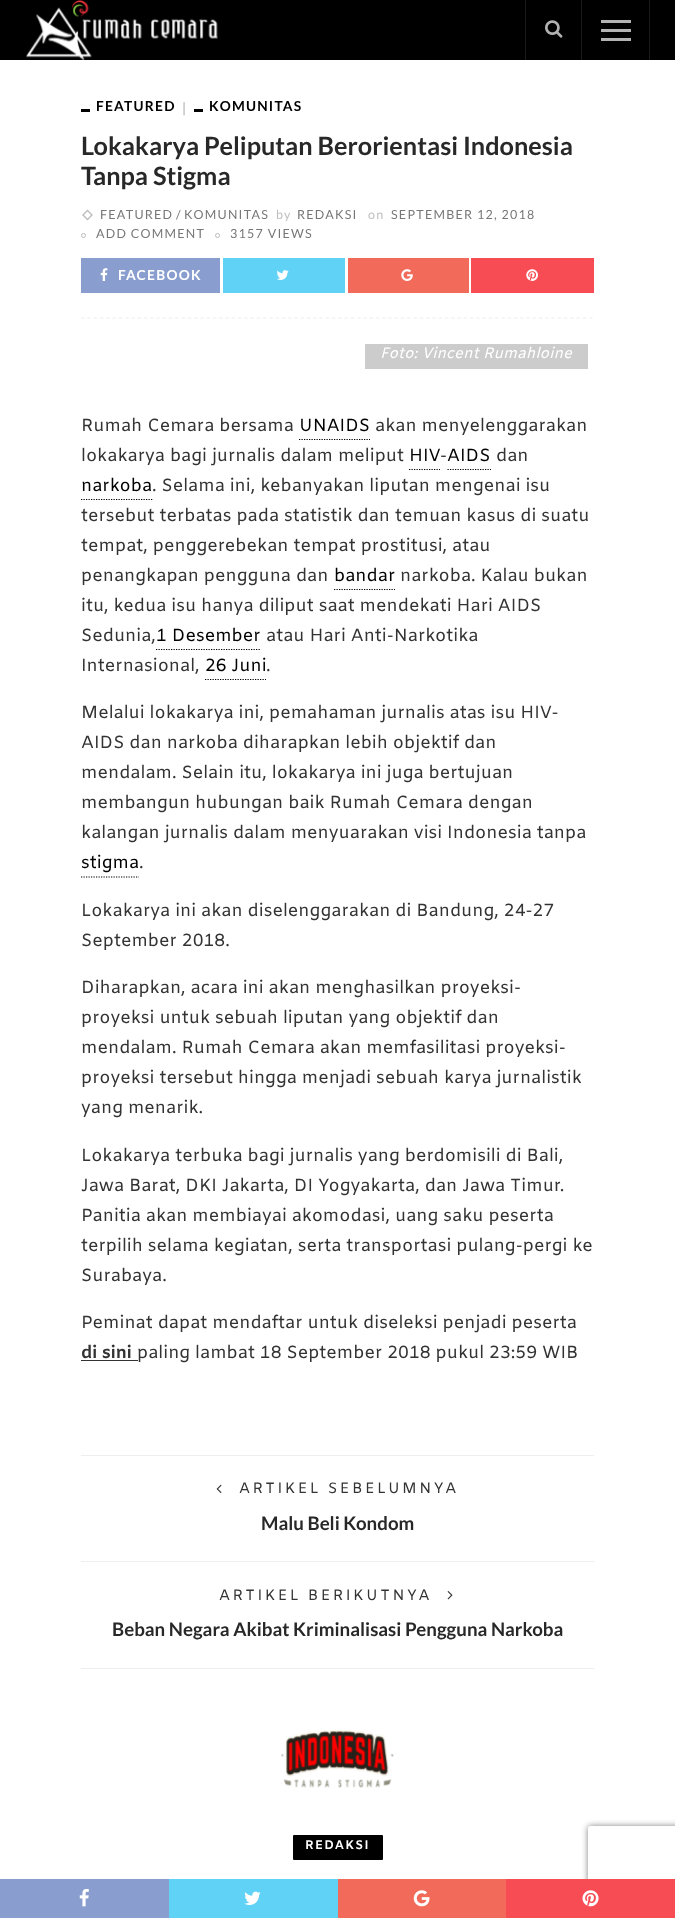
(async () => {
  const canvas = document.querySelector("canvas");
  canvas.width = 675;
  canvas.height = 1918;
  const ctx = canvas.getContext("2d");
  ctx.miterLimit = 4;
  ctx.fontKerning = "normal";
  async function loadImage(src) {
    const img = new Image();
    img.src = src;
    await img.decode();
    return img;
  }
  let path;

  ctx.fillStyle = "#ffffff";
  ctx.fillRect(0, 0, 675, 1918);
  ctx.fillStyle = "#000000";
  ctx.fillRect(0, 0, 675, 60);
  ctx.drawImage(await loadImage("img/1.png"), 26, 0, 192, 60);
  ctx.fillStyle = "#1a1a1a";
  ctx.fillRect(649, 0, 1, 60);
  ctx.fillRect(525, 0, 1, 60);
  ctx.drawImage(await loadImage("img/2.png"), 545, 20, 18, 18);
  for (const [x, y, w, h, color] of [
    [581, 0, 1, 60, "#1a1a1a"],
    [601, 29, 30, 3, "#b3b3b3"],
    [601, 20, 30, 3, "#b3b3b3"],
    [601, 38, 30, 3, "#b3b3b3"],
  ]) {
    ctx.fillStyle = color;
    ctx.fillRect(x, y, w, h);
  }
  path = new Path2D("M81 318H594");
  ctx.strokeStyle = "#eeeeee";
  ctx.lineWidth = 1.2;
  ctx.setLineDash([3.75, 2.52]);
  ctx.stroke(path);
  ctx.fillStyle = "#000000";
  ctx.fillRect(81, 109, 9, 3);
  ctx.fillRect(194, 109, 9, 3);
  path = new Path2D("M87.5 210.5L92 215L87.5 219.5L83 215Z");
  ctx.strokeStyle = "#bbbbbb";
  ctx.lineWidth = 1.3;
  ctx.setLineDash([]);
  ctx.stroke(path);
  ctx.beginPath();
  ctx.arc(83.5, 235.5, 2, 0, Math.PI * 2);
  ctx.lineWidth = 1;
  ctx.stroke();
  ctx.beginPath();
  ctx.arc(217.5, 235.5, 2, 0, Math.PI * 2);
  ctx.stroke();
  ctx.fillStyle = "#899dce";
  ctx.fillRect(81, 258, 139, 35);
  ctx.drawImage(await loadImage("img/3.png"), 100, 268, 8, 13);
  ctx.fillStyle = "#60d2f5";
  ctx.fillRect(223, 258, 122, 35);
  ctx.drawImage(await loadImage("img/4.png"), 276, 270, 13, 10);
  ctx.fillStyle = "#f16a5a";
  ctx.fillRect(348, 258, 121, 35);
  ctx.drawImage(await loadImage("img/5.png"), 401, 269, 12, 12);
  ctx.fillStyle = "#f74c53";
  ctx.fillRect(471, 258, 123, 35);
  ctx.drawImage(await loadImage("img/6.png"), 526, 269, 12, 12);
  ctx.fillStyle = "#cccccc";
  ctx.fillRect(365, 344, 223, 25);
  path = new Path2D("M299 439.5H370");
  ctx.strokeStyle = "#000000";
  ctx.lineWidth = 1.2;
  ctx.setLineDash([1.25, 1.25]);
  ctx.stroke(path);
  path = new Path2D("M409 469.5H440");
  ctx.stroke(path);
  path = new Path2D("M447.5 469.5H491");
  ctx.stroke(path);
  path = new Path2D("M81 499.5H152.5");
  ctx.stroke(path);
  path = new Path2D("M334 589.5H395");
  ctx.stroke(path);
  path = new Path2D("M156 649.5H261");
  ctx.stroke(path);
  path = new Path2D("M205 679.5H266");
  ctx.stroke(path);
  path = new Path2D("M81 877H139");
  ctx.stroke(path);
  ctx.fillStyle = "#333333";
  ctx.fillRect(81, 1360, 57, 1);
  ctx.fillStyle = "#eeeeee";
  ctx.fillRect(81, 1455, 513, 1);
  ctx.drawImage(await loadImage("img/7.png"), 216, 1484, 6, 10);
  ctx.fillRect(81, 1561, 513, 1);
  ctx.drawImage(await loadImage("img/8.png"), 447, 1591, 6, 9);
  ctx.fillRect(81, 1668, 513, 1);
  ctx.drawImage(await loadImage("img/9.png"), 281, 1730, 113, 58);
  ctx.fillStyle = "#000000";
  ctx.beginPath();
  ctx.roundRect(293, 1835, 90, 25, 1);
  ctx.fill();
  ctx.fillStyle = "#899dce";
  ctx.fillRect(0, 1879, 169, 39);
  ctx.drawImage(await loadImage("img/10.png"), 79, 1888, 10, 19);
  ctx.fillStyle = "#60d2f5";
  ctx.fillRect(169, 1879, 169, 39);
  ctx.drawImage(await loadImage("img/11.png"), 244, 1891, 17, 14);
  ctx.fillStyle = "#f16a5a";
  ctx.fillRect(338, 1879, 168, 39);
  ctx.drawImage(await loadImage("img/12.png"), 413, 1890, 17, 17);
  ctx.save();
  path = new Path2D("M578 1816H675V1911H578ZM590.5 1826H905.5C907 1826 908 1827 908 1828.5V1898.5C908 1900 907 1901 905.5 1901H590.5C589 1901 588 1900 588 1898.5V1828.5C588 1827 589 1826 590.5 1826Z");
  ctx.clip(path, "evenodd");
  ctx.fillStyle = "#808080";
  ctx.filter = "blur(3px)";
  ctx.beginPath();
  ctx.roundRect(588, 1826, 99, 75, 2.5);
  ctx.fill();
  ctx.filter = "none";
  ctx.restore();
  ctx.fillStyle = "#f74c53";
  ctx.fillRect(506, 1879, 169, 39);
  ctx.drawImage(await loadImage("img/13.png"), 582, 1890, 17, 17);
  ctx.letterSpacing = "1.25px";
  ctx.font = "bold 13.75px Lato";
  ctx.fillStyle = "#000000";
  ctx.fillText("FEATURED", 96, 111);
  ctx.fillStyle = "#bfbfbf";
  ctx.fillText("|", 182, 113);
  ctx.fillStyle = "#000000";
  ctx.fillText("KOMUNITAS", 209, 111);
  ctx.letterSpacing = "0px";
  ctx.font = "bold 25.25px Lato";
  ctx.fillStyle = "#282828";
  ctx.fillText("Lokakarya Peliputan Berorientasi Indonesia", 81, 155);
  ctx.fillText("Tanpa Stigma", 81, 185);
  ctx.letterSpacing = "1.25px";
  ctx.font = "12.5px Lato";
  ctx.fillStyle = "#777777";
  for (const [text, x, y] of [
    ["FEATURED", 100, 219],
    ["/", 176, 219],
    ["KOMUNITAS", 184, 219],
  ]) {
    ctx.fillText(text, x, y);
  }
  ctx.fillStyle = "#bfbfbf";
  ctx.fillText("by", 276, 219);
  ctx.fillStyle = "#777777";
  ctx.fillText("REDAKSI", 297, 219);
  ctx.fillStyle = "#bfbfbf";
  ctx.fillText("on", 368, 219);
  ctx.fillStyle = "#777777";
  for (const [text, x, y] of [
    ["SEPTEMBER 12, 2018", 391, 219],
    ["ADD COMMENT", 96, 238],
    ["3157 VIEWS", 230, 238],
  ]) {
    ctx.fillText(text, x, y);
  }
  ctx.font = "bold 13.75px Lato";
  ctx.fillStyle = "#ffffff";
  ctx.fillText("FACEBOOK", 118, 280);
  ctx.letterSpacing = "0px";
  ctx.font = "italic 15px Amiko";
  ctx.fillText("Foto: Vincent Rumahloine", 380, 358);
  ctx.font = "17.5px Amiko";
  ctx.fillStyle = "#333333";
  ctx.fillText("Rumah Cemara bersama", 81, 431);
  ctx.fillStyle = "#000000";
  ctx.fillText("UNAIDS", 299, 431);
  ctx.fillStyle = "#333333";
  ctx.fillText("akan menyelenggarakan", 375, 431);
  ctx.fillText("lokakarya bagi jurnalis dalam meliput", 81, 461);
  ctx.fillStyle = "#000000";
  ctx.fillText("HIV", 409, 461);
  ctx.fillStyle = "#333333";
  ctx.fillText("-", 440, 461);
  ctx.fillStyle = "#000000";
  ctx.fillText("AIDS", 447, 461);
  ctx.fillStyle = "#333333";
  ctx.fillText("dan", 496, 461);
  ctx.fillStyle = "#000000";
  ctx.fillText("narkoba", 81, 491);
  ctx.fillStyle = "#333333";
  for (const [text, x, y] of [
    [". Selama ini, kebanyakan liputan mengenai isu", 152, 491],
    ["tersebut terbatas pada statistik dan temuan kasus di suatu", 81, 521],
    ["tempat, penggerebekan tempat prostitusi, atau", 81, 551],
    ["penangkapan pengguna dan", 81, 581],
  ]) {
    ctx.fillText(text, x, y);
  }
  ctx.fillStyle = "#000000";
  ctx.fillText("bandar", 334, 581);
  ctx.fillStyle = "#333333";
  for (const [text, x, y] of [
    ["narkoba. Kalau bukan", 400, 581],
    ["itu, kedua isu hanya diliput saat mendekati Hari AIDS", 81, 611],
    ["Sedunia,", 81, 641],
  ]) {
    ctx.fillText(text, x, y);
  }
  ctx.fillStyle = "#000000";
  ctx.fillText("1 Desember", 156, 641);
  ctx.fillStyle = "#333333";
  ctx.fillText("atau Hari Anti-Narkotika", 266, 641);
  ctx.fillText("Internasional,", 81, 671);
  ctx.fillStyle = "#000000";
  ctx.fillText("26 Juni", 205, 671);
  ctx.fillStyle = "#333333";
  for (const [text, x, y] of [
    [".", 266, 671],
    ["Melalui lokakarya ini, pemahaman jurnalis atas isu HIV-", 81, 718],
    ["AIDS dan narkoba diharapkan lebih objektif dan", 81, 748],
    ["mendalam. Selain itu, lokakarya ini juga bertujuan", 81, 778],
    ["membangun hubungan baik Rumah Cemara dengan", 81, 808],
    ["kalangan jurnalis dalam menyuarakan visi Indonesia tanpa", 81, 838],
  ]) {
    ctx.fillText(text, x, y);
  }
  ctx.fillStyle = "#000000";
  ctx.fillText("stigma", 81, 868);
  ctx.fillStyle = "#333333";
  for (const [text, x, y] of [
    [".", 139, 868],
    ["Lokakarya ini akan diselenggarakan di Bandung, 24-27", 81, 916],
    ["September 2018.", 81, 946],
    ["Diharapkan, acara ini akan menghasilkan proyeksi-", 81, 993],
    ["proyeksi untuk sebuah liputan yang objektif dan", 81, 1023],
    ["mendalam. Rumah Cemara akan memfasilitasi proyeksi-", 81, 1053],
    ["proyeksi tersebut hingga menjadi sebuah karya jurnalistik", 81, 1083],
    ["yang menarik.", 81, 1113],
    ["Lokakarya terbuka bagi jurnalis yang berdomisili di Bali,", 81, 1161],
    ["Jawa Barat, DKI Jakarta, DI Yogyakarta, dan Jawa Timur.", 81, 1191],
    ["Panitia akan membiayai akomodasi, uang saku peserta", 81, 1221],
    ["terpilih selama kegiatan, serta transportasi pulang-pergi ke", 81, 1251],
    ["Surabaya.", 81, 1281],
    ["Peminat dapat mendaftar untuk diseleksi penjadi peserta", 81, 1328],
  ]) {
    ctx.fillText(text, x, y);
  }
  ctx.font = "bold 17.5px Amiko";
  ctx.fillText("di sini", 81, 1358);
  ctx.font = "17.5px Amiko";
  ctx.fillText("paling lambat 18 September 2018 pukul 23:59 WIB", 137, 1358);
  ctx.letterSpacing = "2.5px";
  ctx.font = "15px Amiko";
  ctx.fillText("ARTIKEL SEBELUMNYA", 239, 1493);
  ctx.letterSpacing = "0px";
  ctx.font = "bold 18.7px Lato";
  ctx.fillStyle = "#282828";
  ctx.fillText("Malu Beli Kondom", 261, 1530);
  ctx.letterSpacing = "2.5px";
  ctx.font = "15px Amiko";
  ctx.fillStyle = "#333333";
  ctx.fillText("ARTIKEL BERIKUTNYA", 219, 1600);
  ctx.letterSpacing = "0px";
  ctx.font = "bold 18.7px Lato";
  ctx.fillStyle = "#282828";
  ctx.fillText("Beban Negara Akibat Kriminalisasi Pengguna Narkoba", 112, 1636);
  ctx.letterSpacing = "1.25px";
  ctx.font = "bold 12.5px Amiko";
  ctx.fillStyle = "#ffffff";
  ctx.fillText("REDAKSI", 305, 1849);
})();
